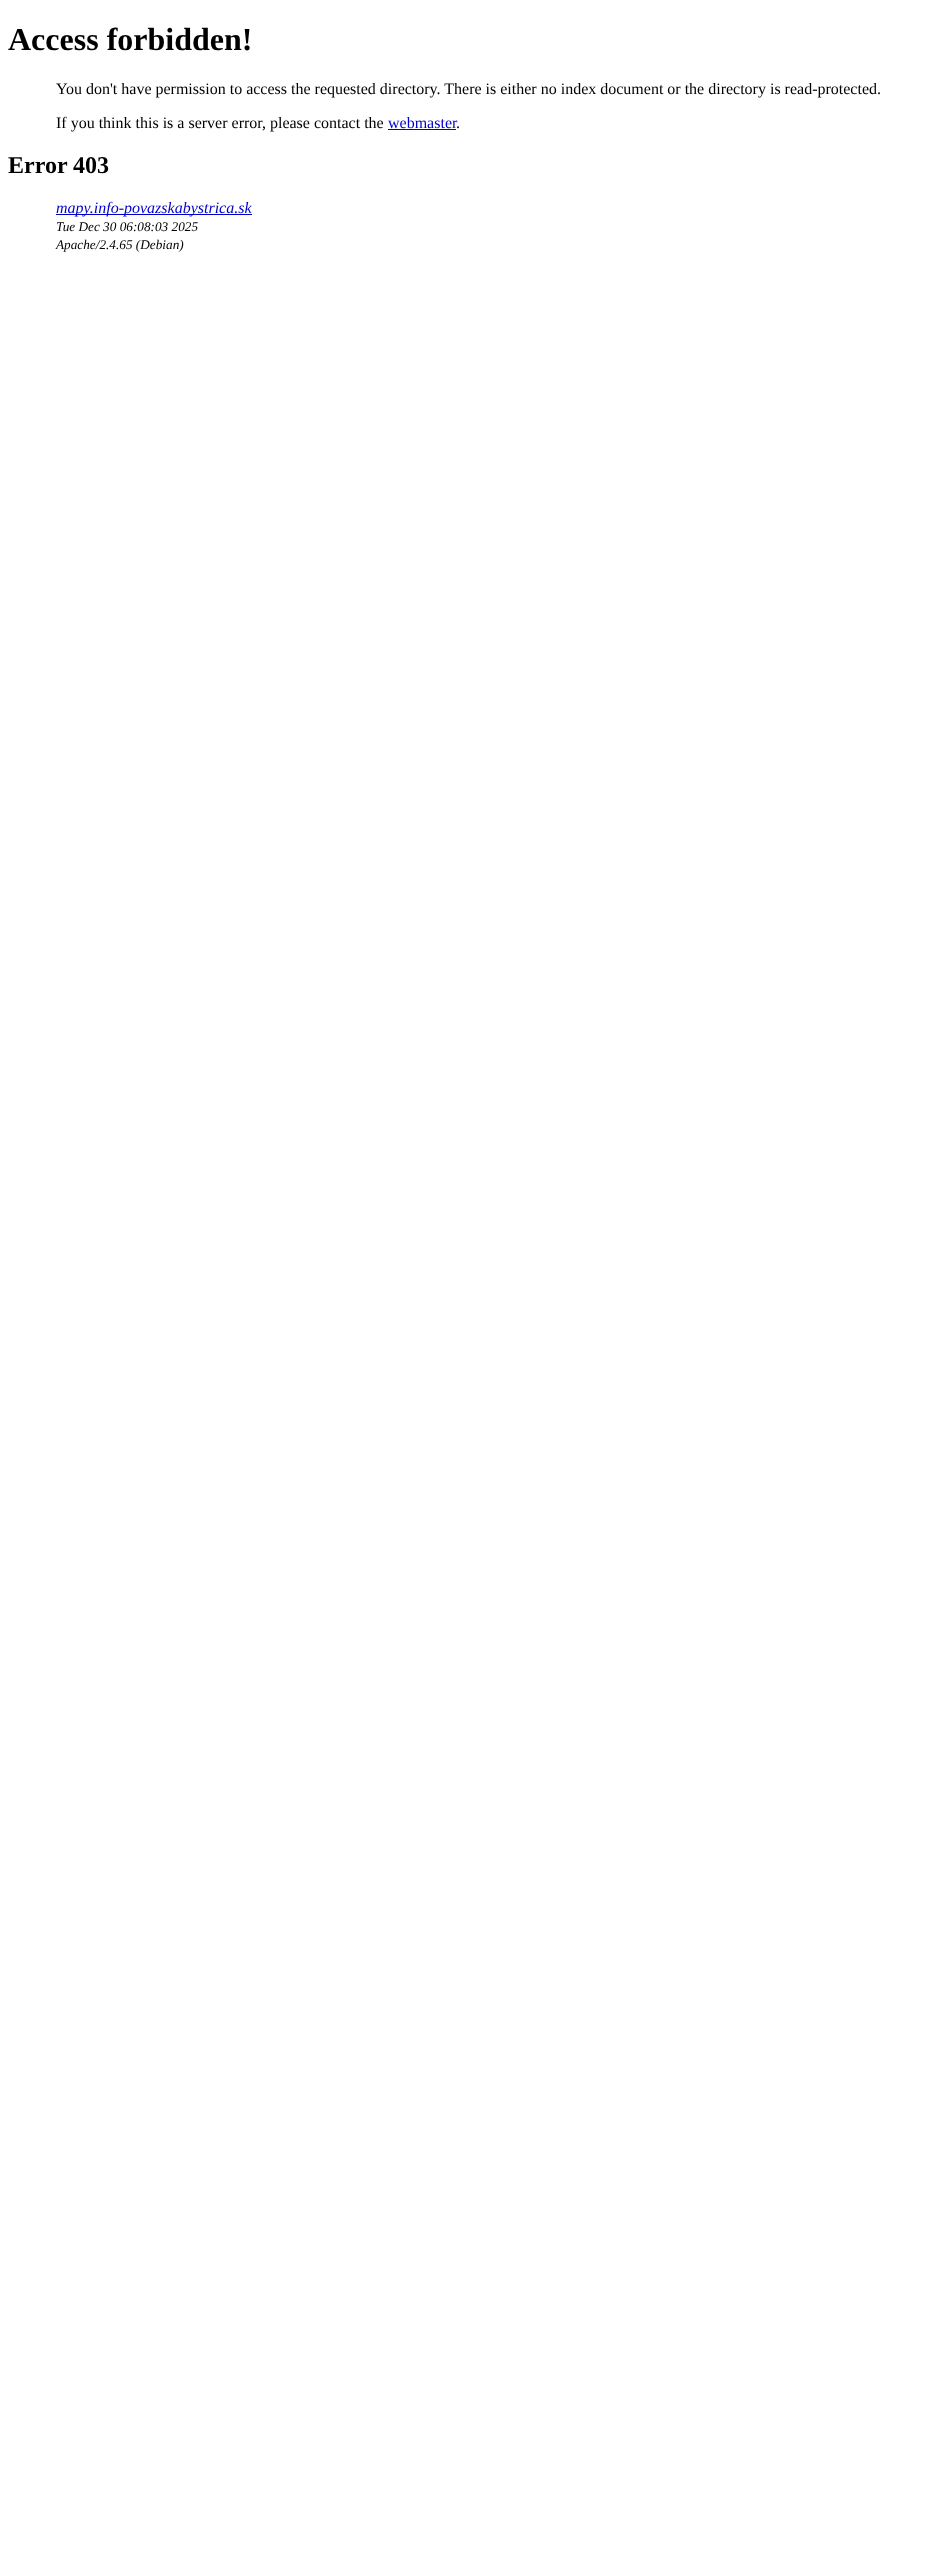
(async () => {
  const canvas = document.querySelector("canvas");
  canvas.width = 950;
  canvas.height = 2562;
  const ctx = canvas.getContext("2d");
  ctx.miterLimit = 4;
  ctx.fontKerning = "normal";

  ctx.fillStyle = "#ffffff";
  ctx.fillRect(0, 0, 950, 2562);
  ctx.fillStyle = "#0000cc";
  ctx.fillRect(388, 129, 68, 1);
  ctx.fillRect(56, 214, 196, 1);
  ctx.font = "bold 32px Liberation Serif";
  ctx.fillStyle = "#000000";
  ctx.fillText("Access forbidden!", 8, 50);
  ctx.font = "16px Liberation Serif";
  ctx.fillText("You don't have permission to access the requested directory. There is either no index document or the directory is read-protected.", 56, 94);
  ctx.fillText("If you think this is a server error, please contact the", 56, 128);
  ctx.fillStyle = "#0000cc";
  ctx.fillText("webmaster", 388, 128);
  ctx.fillStyle = "#000000";
  ctx.fillText(".", 456, 128);
  ctx.font = "bold 24px Liberation Serif";
  ctx.fillText("Error 403", 8, 173);
  ctx.font = "italic 16px Liberation Serif";
  ctx.fillStyle = "#0000cc";
  ctx.fillText("mapy.info-povazskabystrica.sk", 56, 213);
  ctx.font = "italic 13.25px Liberation Serif";
  ctx.fillStyle = "#000000";
  ctx.fillText("Tue Dec 30 06:08:03 2025", 56, 231);
  ctx.fillText("Apache/2.4.65 (Debian)", 56, 249);
})();
